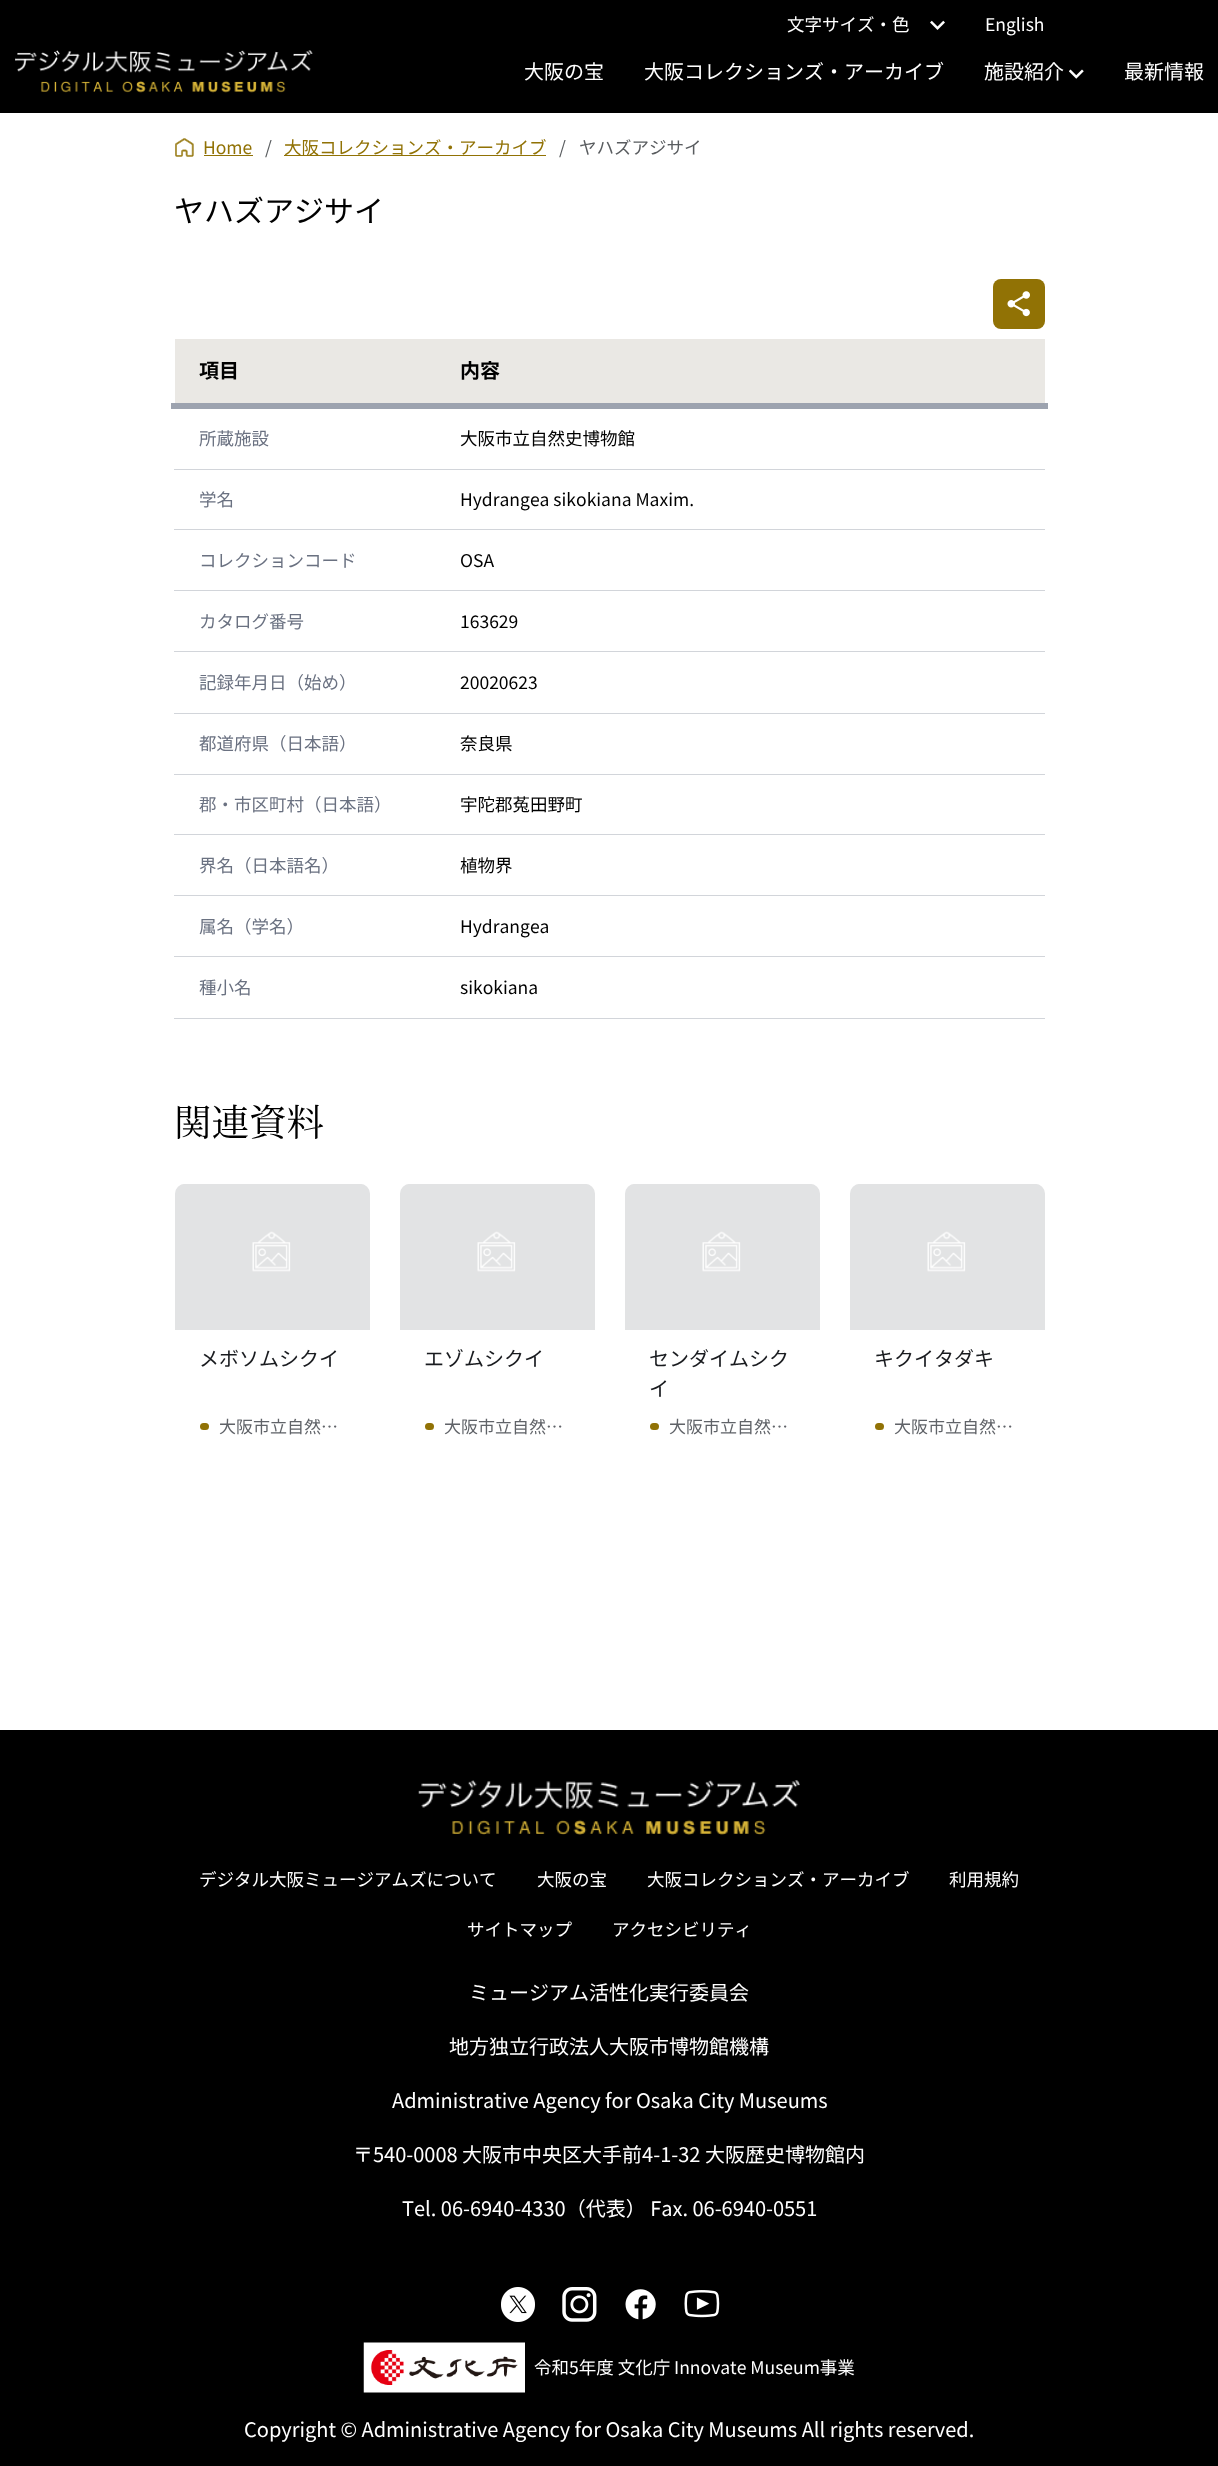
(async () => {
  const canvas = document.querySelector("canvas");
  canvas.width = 1218;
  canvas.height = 2466;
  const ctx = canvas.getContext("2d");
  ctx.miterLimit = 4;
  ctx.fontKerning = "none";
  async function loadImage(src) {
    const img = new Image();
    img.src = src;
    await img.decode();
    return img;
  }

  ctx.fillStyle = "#ffffff";
  ctx.fillRect(0, 0, 1218, 2466);
  ctx.fillStyle = "#000000";
  ctx.fillRect(0, 0, 1218, 113);
  ctx.drawImage(await loadImage("img/1.png"), 930, 20, 15, 10);
  ctx.drawImage(await loadImage("img/2.png"), 15, 50, 298, 43);
  ctx.drawImage(await loadImage("img/3.png"), 1069, 69, 15, 10);
  ctx.drawImage(await loadImage("img/4.png"), 175, 138, 19, 19);
  ctx.fillStyle = "#917205";
  ctx.fillRect(204, 155, 49, 1);
  ctx.fillRect(284, 155, 262, 1);
  ctx.beginPath();
  ctx.roundRect(993, 279, 52, 50, 8);
  ctx.fill();
  ctx.drawImage(await loadImage("img/5.png"), 1007, 291, 23, 26);
  for (const [x, y, w, h, color] of [
    [175, 339, 870, 64, "#eae8e4"],
    [171, 403, 877, 6, "#9da3af"],
    [174, 469, 871, 1, "#d2d5da"],
    [174, 529, 871, 1, "#d2d5da"],
    [174, 590, 871, 1, "#d2d5da"],
    [174, 651, 871, 1, "#d2d5da"],
    [174, 713, 871, 1, "#d2d5da"],
    [174, 774, 871, 1, "#d2d5da"],
    [174, 834, 871, 1, "#d2d5da"],
    [174, 895, 871, 1, "#d2d5da"],
    [174, 956, 871, 1, "#d2d5da"],
    [174, 1018, 871, 1, "#d2d5da"],
  ]) {
    ctx.fillStyle = color;
    ctx.fillRect(x, y, w, h);
  }
  ctx.drawImage(await loadImage("img/6.png"), 175, 1184, 195, 146);
  ctx.fillStyle = "#917205";
  ctx.beginPath();
  ctx.roundRect(200, 1423, 9, 7, 3.5);
  ctx.fill();
  ctx.drawImage(await loadImage("img/7.png"), 400, 1184, 195, 146);
  ctx.beginPath();
  ctx.roundRect(425, 1423, 9, 7, 3.5);
  ctx.fill();
  ctx.drawImage(await loadImage("img/7.png"), 625, 1184, 195, 146);
  ctx.beginPath();
  ctx.roundRect(650, 1423, 9, 7, 3.5);
  ctx.fill();
  ctx.drawImage(await loadImage("img/8.png"), 850, 1184, 195, 146);
  ctx.beginPath();
  ctx.roundRect(875, 1423, 9, 7, 3.5);
  ctx.fill();
  ctx.fillStyle = "#000000";
  ctx.fillRect(0, 1730, 1218, 736);
  ctx.drawImage(await loadImage("img/9.png"), 418, 1780, 382, 55);
  ctx.drawImage(await loadImage("img/10.png"), 501, 2287, 34, 35);
  ctx.drawImage(await loadImage("img/11.png"), 562, 2287, 35, 35);
  ctx.drawImage(await loadImage("img/12.png"), 625, 2289, 31, 31);
  ctx.drawImage(await loadImage("img/13.png"), 684, 2290, 36, 28);
  ctx.drawImage(await loadImage("img/14.png"), 363, 2342, 162, 51);
  ctx.font = "17.5px Noto Sans JP";
  ctx.fillStyle = "#ffffff";
  ctx.fillText("文字サイズ・色", 787, 31);
  ctx.fillText("English", 985, 31);
  ctx.font = "20px Noto Sans JP";
  for (const [text, x, y] of [
    ["大阪の宝", 524, 79],
    ["大阪コレクションズ・アーカイブ", 644, 79],
    ["施設紹介", 984, 79],
    ["最新情報", 1124, 79],
  ]) {
    ctx.fillText(text, x, y);
  }
  ctx.font = "17.5px Noto Sans JP";
  ctx.fillStyle = "#917205";
  ctx.fillText("Home", 203, 154);
  ctx.fillStyle = "#595c5f";
  ctx.fillText("/", 265, 154);
  ctx.fillStyle = "#917205";
  ctx.fillText("大阪コレクションズ・アーカイブ", 284, 154);
  ctx.fillStyle = "#595c5f";
  ctx.fillText("/", 559, 154);
  ctx.fillText("ヤハズアジサイ", 579, 154);
  ctx.font = "30px Noto Sans JP";
  ctx.fillStyle = "#000000";
  ctx.fillText("ヤハズアジサイ", 174, 222);
  ctx.font = "bold 20px Noto Sans JP";
  ctx.fillText("項目", 199, 378);
  ctx.fillText("内容", 460, 378);
  ctx.font = "17.5px Noto Sans JP";
  ctx.fillStyle = "#6a7181";
  ctx.fillText("所蔵施設", 199, 445);
  ctx.fillStyle = "#000000";
  ctx.fillText("大阪市立自然史博物館", 460, 445);
  ctx.fillStyle = "#6a7181";
  ctx.fillText("学名", 199, 506);
  ctx.fillStyle = "#000000";
  ctx.fillText("Hydrangea sikokiana Maxim.", 460, 506);
  ctx.fillStyle = "#6a7181";
  ctx.fillText("コレクションコード", 199, 567);
  ctx.fillStyle = "#000000";
  ctx.fillText("OSA", 460, 567);
  ctx.fillStyle = "#6a7181";
  ctx.fillText("カタログ番号", 199, 628);
  ctx.fillStyle = "#000000";
  ctx.fillText("163629", 460, 628);
  ctx.fillStyle = "#6a7181";
  ctx.fillText("記録年月日（始め）", 199, 689);
  ctx.fillStyle = "#000000";
  ctx.fillText("20020623", 460, 689);
  ctx.fillStyle = "#6a7181";
  ctx.fillText("都道府県（日本語）", 199, 750);
  ctx.fillStyle = "#000000";
  ctx.fillText("奈良県", 460, 750);
  ctx.fillStyle = "#6a7181";
  ctx.fillText("郡・市区町村（日本語）", 199, 811);
  ctx.fillStyle = "#000000";
  ctx.fillText("宇陀郡菟田野町", 460, 811);
  ctx.fillStyle = "#6a7181";
  ctx.fillText("界名（日本語名）", 199, 872);
  ctx.fillStyle = "#000000";
  ctx.fillText("植物界", 460, 872);
  ctx.fillStyle = "#6a7181";
  ctx.fillText("属名（学名）", 199, 933);
  ctx.fillStyle = "#000000";
  ctx.fillText("Hydrangea", 460, 933);
  ctx.fillStyle = "#6a7181";
  ctx.fillText("種小名", 199, 994);
  ctx.fillStyle = "#000000";
  ctx.fillText("sikokiana", 460, 994);
  ctx.font = "37.5px Noto Serif JP";
  ctx.fillText("関連資料", 174, 1136);
  ctx.font = "20px Noto Sans JP";
  ctx.fillStyle = "#191b1f";
  ctx.fillText("メボソムシクイ", 199, 1366);
  ctx.font = "17px Noto Sans JP";
  ctx.fillStyle = "#606368";
  ctx.fillText("大阪市立自然…", 219, 1433);
  ctx.font = "20px Noto Sans JP";
  ctx.fillStyle = "#191b1f";
  ctx.fillText("エゾムシクイ", 424, 1366);
  ctx.font = "17px Noto Sans JP";
  ctx.fillStyle = "#606368";
  ctx.fillText("大阪市立自然…", 444, 1433);
  ctx.font = "20px Noto Sans JP";
  ctx.fillStyle = "#191b1f";
  ctx.fillText("センダイムシク", 649, 1366);
  ctx.fillText("イ", 649, 1396);
  ctx.font = "17px Noto Sans JP";
  ctx.fillStyle = "#606368";
  ctx.fillText("大阪市立自然…", 669, 1433);
  ctx.font = "20px Noto Sans JP";
  ctx.fillStyle = "#191b1f";
  ctx.fillText("キクイタダキ", 874, 1366);
  ctx.font = "17px Noto Sans JP";
  ctx.fillStyle = "#606368";
  ctx.fillText("大阪市立自然…", 894, 1433);
  ctx.font = "17.5px Noto Sans JP";
  ctx.fillStyle = "#ffffff";
  for (const [text, x, y] of [
    ["デジタル大阪ミュージアムズについて", 199, 1886],
    ["大阪の宝", 537, 1886],
    ["大阪コレクションズ・アーカイブ", 647, 1886],
    ["利用規約", 949, 1886],
    ["サイトマップ", 467, 1936],
    ["アクセシビリティ", 612, 1936],
  ]) {
    ctx.fillText(text, x, y);
  }
  ctx.font = "20px Noto Sans JP";
  for (const [text, x, y] of [
    ["ミュージアム活性化実行委員会", 469, 2000],
    ["地方独立行政法人大阪市博物館機構", 449, 2054],
    ["Administrative Agency for Osaka City Museums", 392, 2108],
    ["〒540-0008 大阪市中央区大手前4-1-32 大阪歴史博物館内", 353, 2162],
    ["Tel. 06-6940-4330（代表） Fax. 06-6940-0551", 402, 2216],
  ]) {
    ctx.fillText(text, x, y);
  }
  ctx.font = "17.5px Noto Sans JP";
  ctx.fillText("令和5年度 文化庁 Innovate Museum事業", 534, 2374);
  ctx.font = "20px Noto Sans JP";
  ctx.fillText("Copyright © Administrative Agency for Osaka City Museums All rights reserved.", 244, 2437);
})();
